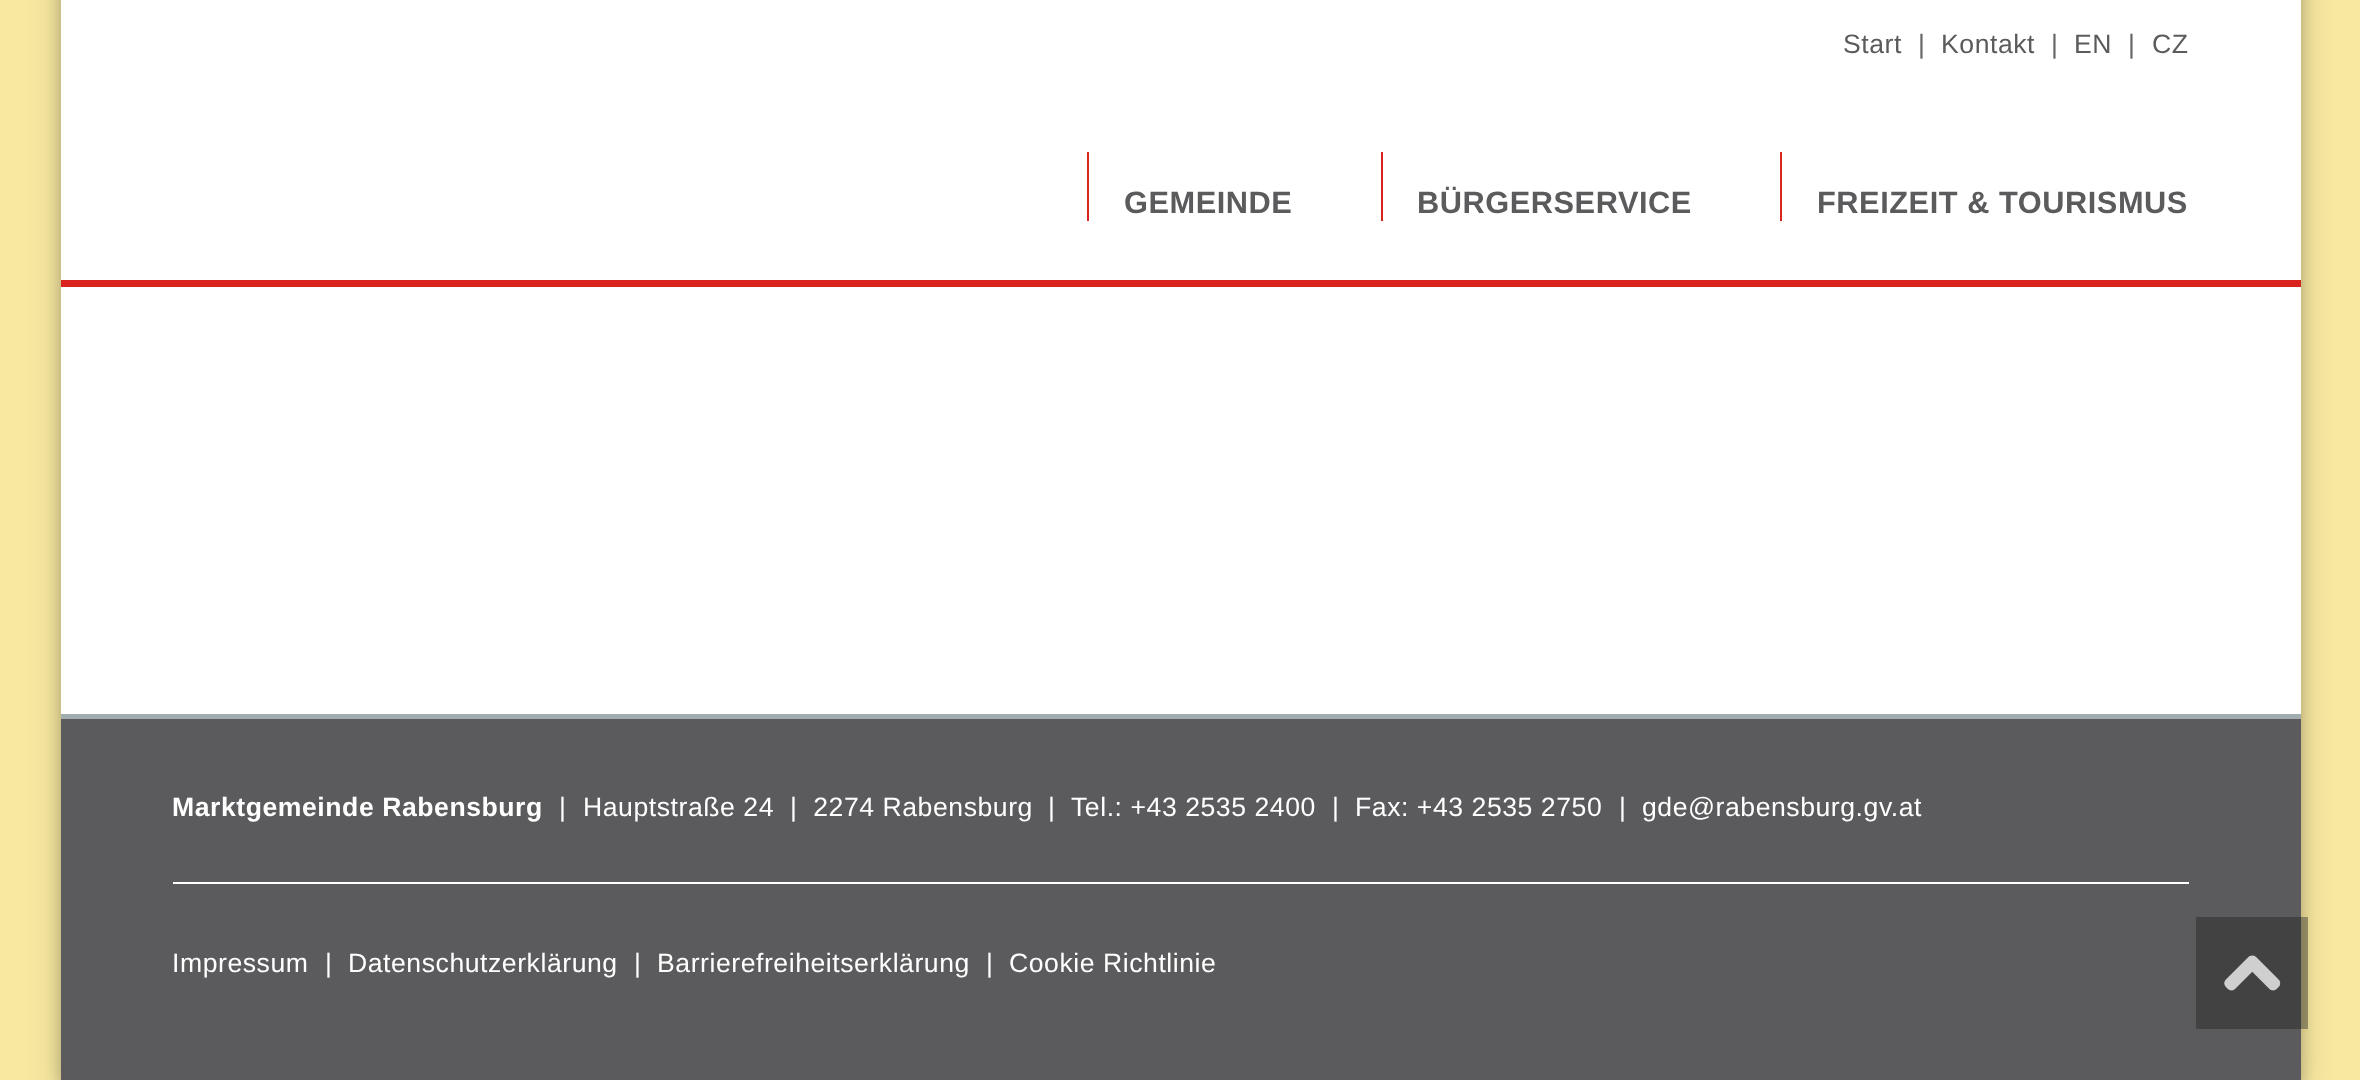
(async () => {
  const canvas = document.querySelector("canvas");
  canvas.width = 2360;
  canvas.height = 1080;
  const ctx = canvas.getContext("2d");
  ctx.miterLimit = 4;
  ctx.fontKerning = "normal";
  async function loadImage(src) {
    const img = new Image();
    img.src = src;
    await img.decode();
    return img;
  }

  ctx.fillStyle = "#f8e9a1";
  ctx.fillRect(0, 0, 2360, 1080);
  ctx.fillStyle = "rgba(0, 0, 0, 0.19)";
  ctx.filter = "blur(17.5px)";
  ctx.beginPath();
  ctx.rect(61, -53, 2240, 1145);
  ctx.fill();
  ctx.filter = "none";
  ctx.fillStyle = "rgba(0, 0, 0, 0.2)";
  ctx.filter = "blur(7px)";
  ctx.beginPath();
  ctx.rect(61, -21, 2240, 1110);
  ctx.fill();
  ctx.filter = "none";
  for (const [x, y, w, h, color] of [
    [61, 287, 2240, 427, "#ffffff"],
    [61, 0, 2240, 280, "#ffffff"],
    [61, 280, 2240, 7, "#d9241d"],
    [1087, 152, 2, 69, "#d9241d"],
    [1381, 152, 2, 69, "#d9241d"],
    [1780, 152, 2, 69, "#d9241d"],
    [61, 719, 2240, 361, "#5b5b5d"],
    [61, 714, 2240, 5, "#a1adae"],
    [173, 882, 2016, 2, "#ffffff"],
    [2196, 917, 112, 112, "rgba(30, 30, 30, 0.4)"],
  ]) {
    ctx.fillStyle = color;
    ctx.fillRect(x, y, w, h);
  }
  ctx.drawImage(await loadImage("img/1.png"), 2224, 955, 57, 36);
  ctx.letterSpacing = "0.55px";
  ctx.font = "26.6px Arimo";
  ctx.fillStyle = "#5b5b5d";
  ctx.fillText("Start", 1843, 53);
  ctx.fillStyle = "#666666";
  ctx.fillText("|", 1918, 53);
  ctx.fillStyle = "#5b5b5d";
  ctx.fillText("Kontakt", 1941, 53);
  ctx.fillStyle = "#666666";
  ctx.fillText("|", 2051, 53);
  ctx.fillStyle = "#5b5b5d";
  ctx.fillText("EN", 2074, 53);
  ctx.fillStyle = "#666666";
  ctx.fillText("|", 2128, 53);
  ctx.fillStyle = "#5b5b5d";
  ctx.fillText("CZ", 2152, 53);
  ctx.font = "bold 30.75px Arimo";
  for (const [text, x, y] of [
    ["GEMEINDE", 1124, 213],
    ["BÜRGERSERVICE", 1417, 213],
    ["FREIZEIT & TOURISMUS", 1817, 213],
  ]) {
    ctx.fillText(text, x, y);
  }
  ctx.font = "bold 26.6px Arimo";
  ctx.fillStyle = "#ffffff";
  ctx.fillText("Marktgemeinde Rabensburg", 172, 816);
  ctx.font = "26.6px Arimo";
  for (const [text, x, y] of [
    ["|", 559, 816],
    ["Hauptstraße 24  |  2274 Rabensburg", 583, 816],
    ["|", 1048, 816],
    ["Tel.: +43 2535 2400", 1071, 816],
    ["|", 1332, 816],
    ["Fax: +43 2535 2750", 1355, 816],
    ["|", 1619, 816],
    ["gde@rabensburg.gv.at", 1642, 816],
    ["Impressum", 172, 972],
    ["|", 325, 972],
    ["Datenschutzerklärung", 348, 972],
    ["|", 634, 972],
    ["Barrierefreiheitserklärung", 657, 972],
    ["|", 986, 972],
    ["Cookie Richtlinie", 1009, 972],
  ]) {
    ctx.fillText(text, x, y);
  }
})();
